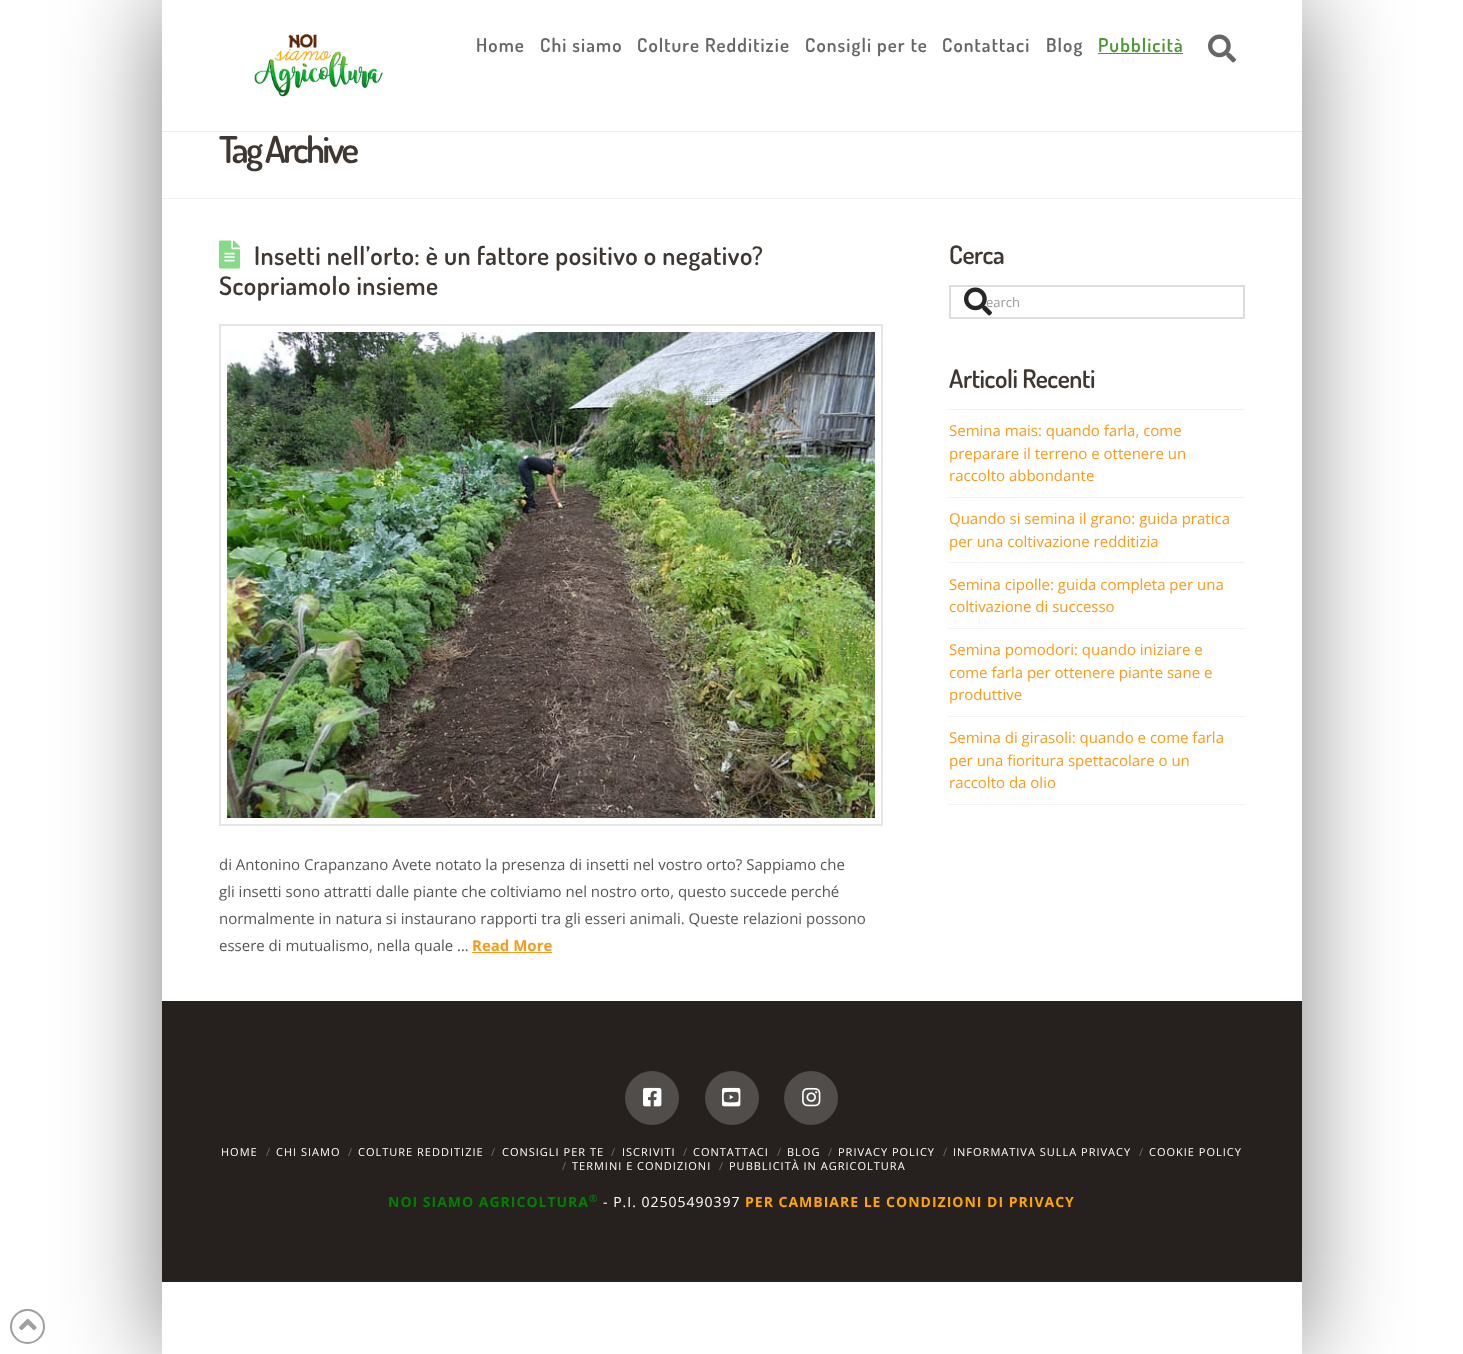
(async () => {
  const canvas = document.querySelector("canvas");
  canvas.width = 1463;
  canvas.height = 1354;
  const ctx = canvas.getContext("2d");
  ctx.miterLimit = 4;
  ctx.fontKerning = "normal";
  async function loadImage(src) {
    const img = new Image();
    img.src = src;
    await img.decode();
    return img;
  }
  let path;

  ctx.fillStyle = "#ffffff";
  ctx.fillRect(0, 0, 1463, 1354);
  ctx.save();
  path = new Path2D("M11 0H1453V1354H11ZM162 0H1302V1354H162Z");
  ctx.clip(path, "evenodd");
  ctx.fillStyle = "rgba(0, 0, 0, 0.5)";
  ctx.filter = "blur(50px)";
  ctx.beginPath();
  ctx.rect(162, 0, 1140, 1354);
  ctx.fill();
  ctx.filter = "none";
  ctx.restore();
  ctx.fillStyle = "#ededed";
  ctx.fillRect(162, 131, 1140, 1);
  ctx.drawImage(await loadImage("img/1.png"), 254, 34, 130, 63);
  ctx.fillStyle = "#4a9931";
  ctx.fillRect(1098, 53, 85, 1);
  ctx.drawImage(await loadImage("img/2.png"), 1208, 34, 28, 29);
  ctx.fillStyle = "#f2f2f2";
  ctx.fillRect(162, 198, 1140, 1);
  ctx.drawImage(await loadImage("img/3.png"), 219, 240, 21, 29);
  ctx.strokeStyle = "#e5e5e5";
  ctx.lineWidth = 2;
  ctx.strokeRect(220, 325, 662, 500);
  ctx.drawImage(await loadImage("img/4.png"), 227, 332, 648, 486);
  ctx.fillStyle = "#f89b1c";
  ctx.fillRect(472, 952, 80, 1);
  ctx.strokeStyle = "#dddddd";
  ctx.strokeRect(950, 286, 294, 32);
  for (const [x, y, w, h, color] of [
    [949, 409, 296, 1, "#f2f2f2"],
    [949, 497, 296, 1, "#f2f2f2"],
    [949, 562, 296, 1, "#f2f2f2"],
    [949, 628, 296, 1, "#f2f2f2"],
    [949, 716, 296, 1, "#f2f2f2"],
    [949, 804, 296, 1, "#f2f2f2"],
    [162, 1001, 1140, 281, "#26211e"],
  ]) {
    ctx.fillStyle = color;
    ctx.fillRect(x, y, w, h);
  }
  ctx.fillStyle = "#514d4b";
  ctx.beginPath();
  ctx.arc(652, 1098, 27, 0, Math.PI * 2);
  ctx.fill();
  ctx.drawImage(await loadImage("img/6.png"), 643, 1087, 19, 20);
  ctx.beginPath();
  ctx.arc(732, 1098, 27, 0, Math.PI * 2);
  ctx.fill();
  ctx.drawImage(await loadImage("img/7.png"), 722, 1087, 19, 20);
  ctx.beginPath();
  ctx.arc(811, 1098, 27, 0, Math.PI * 2);
  ctx.fill();
  ctx.drawImage(await loadImage("img/8.png"), 802, 1087, 19, 20);
  ctx.beginPath();
  ctx.arc(27.5, 1326.5, 16.5, 0, Math.PI * 2);
  ctx.strokeStyle = "#9f9f9f";
  ctx.stroke();
  ctx.drawImage(await loadImage("img/9.png"), 19, 1318, 18, 13);
  ctx.letterSpacing = "1.1px";
  ctx.font = "600 19px Dosis";
  ctx.fillStyle = "#666666";
  for (const [text, x, y] of [
    ["Home", 476, 52],
    ["Chi siamo", 540, 52],
    ["Colture Redditizie", 637, 52],
    ["Consigli per te", 805, 52],
    ["Contattaci", 942, 52],
    ["Blog", 1046, 52],
  ]) {
    ctx.fillText(text, x, y);
  }
  ctx.fillStyle = "#4a9931";
  ctx.fillText("Pubblicità", 1098, 52);
  ctx.letterSpacing = "-2.75px";
  ctx.font = "600 37px Dosis";
  ctx.fillStyle = "#3f3731";
  ctx.fillText("Tag Archive", 219, 163);
  ctx.letterSpacing = "0.5px";
  ctx.font = "600 25.5px Dosis";
  ctx.fillText("Insetti nell’orto: è un fattore positivo o negativo?", 254, 265);
  ctx.fillText("Scopriamolo insieme", 219, 295);
  ctx.letterSpacing = "0px";
  ctx.font = "15px Open Sans";
  ctx.fillStyle = "#565656";
  for (const [text, x, y] of [
    ["di Antonino Crapanzano Avete notato la presenza di insetti nel vostro orto? Sappiamo che", 219, 870],
    ["gli insetti sono attratti dalle piante che coltiviamo nel nostro orto, questo succede perché", 219, 897],
    ["normalmente in natura si instaurano rapporti tra gli esseri animali. Queste relazioni possono", 219, 924],
    ["essere di mutualismo, nella quale …", 219, 951],
  ]) {
    ctx.fillText(text, x, y);
  }
  ctx.font = "bold 15px Open Sans";
  ctx.fillStyle = "#f89b1c";
  ctx.fillText("Read More", 472, 951);
  ctx.letterSpacing = "-0.4px";
  ctx.font = "600 25.5px Dosis";
  ctx.fillStyle = "#3f3731";
  ctx.fillText("Cerca", 949, 264);
  ctx.letterSpacing = "0px";
  ctx.font = "13px Open Sans";
  ctx.fillStyle = "#999999";
  ctx.fillText("earch", 986, 307);
  ctx.drawImage(await loadImage("img/5.png"), 964, 287, 28, 29);
  ctx.letterSpacing = "-0.4px";
  ctx.font = "600 25.5px Dosis";
  ctx.fillStyle = "#3f3731";
  ctx.fillText("Articoli Recenti", 949, 388);
  ctx.letterSpacing = "0px";
  ctx.font = "15px Open Sans";
  ctx.fillStyle = "#f89b1c";
  for (const [text, x, y] of [
    ["Semina mais: quando farla, come", 949, 436],
    ["preparare il terreno e ottenere un", 949, 459],
    ["raccolto abbondante", 949, 481],
    ["Quando si semina il grano: guida pratica", 949, 524],
    ["per una coltivazione redditizia", 949, 547],
    ["Semina cipolle: guida completa per una", 949, 590],
    ["coltivazione di successo", 949, 612],
    ["Semina pomodori: quando iniziare e", 949, 655],
    ["come farla per ottenere piante sane e", 949, 678],
    ["produttive", 949, 700],
    ["Semina di girasoli: quando e come farla", 949, 743],
    ["per una fioritura spettacolare o un", 949, 766],
    ["raccolto da olio", 949, 788],
  ]) {
    ctx.fillText(text, x, y);
  }
  ctx.letterSpacing = "1px";
  ctx.font = "11px Open Sans";
  ctx.fillStyle = "#ffffff";
  ctx.fillText("HOME", 221, 1156);
  ctx.letterSpacing = "0px";
  ctx.fillStyle = "#726f6d";
  ctx.fillText("/", 266, 1156);
  ctx.letterSpacing = "1px";
  ctx.fillStyle = "#ffffff";
  ctx.fillText("CHI SIAMO", 276, 1156);
  ctx.letterSpacing = "0px";
  ctx.fillStyle = "#726f6d";
  ctx.fillText("/", 348, 1156);
  ctx.letterSpacing = "1px";
  ctx.fillStyle = "#ffffff";
  ctx.fillText("COLTURE REDDITIZIE", 358, 1156);
  ctx.letterSpacing = "0px";
  ctx.fillStyle = "#726f6d";
  ctx.fillText("/", 491, 1156);
  ctx.letterSpacing = "1px";
  ctx.fillStyle = "#ffffff";
  ctx.fillText("CONSIGLI PER TE", 502, 1156);
  ctx.letterSpacing = "0px";
  ctx.fillStyle = "#726f6d";
  ctx.fillText("/", 611, 1156);
  ctx.letterSpacing = "1px";
  ctx.fillStyle = "#ffffff";
  ctx.fillText("ISCRIVITI", 622, 1156);
  ctx.letterSpacing = "0px";
  ctx.fillStyle = "#726f6d";
  ctx.fillText("/", 683, 1156);
  ctx.letterSpacing = "1px";
  ctx.fillStyle = "#ffffff";
  ctx.fillText("CONTATTACI", 693, 1156);
  ctx.letterSpacing = "0px";
  ctx.fillStyle = "#726f6d";
  ctx.fillText("/", 777, 1156);
  ctx.letterSpacing = "1px";
  ctx.fillStyle = "#ffffff";
  ctx.fillText("BLOG", 787, 1156);
  ctx.letterSpacing = "0px";
  ctx.fillStyle = "#726f6d";
  ctx.fillText("/", 828, 1156);
  ctx.letterSpacing = "1px";
  ctx.fillStyle = "#ffffff";
  ctx.fillText("PRIVACY POLICY", 838, 1156);
  ctx.letterSpacing = "0px";
  ctx.fillStyle = "#726f6d";
  ctx.fillText("/", 943, 1156);
  ctx.letterSpacing = "1px";
  ctx.fillStyle = "#ffffff";
  ctx.fillText("INFORMATIVA SULLA PRIVACY", 953, 1156);
  ctx.letterSpacing = "0px";
  ctx.fillStyle = "#726f6d";
  ctx.fillText("/", 1139, 1156);
  ctx.letterSpacing = "1px";
  ctx.fillStyle = "#ffffff";
  ctx.fillText("COOKIE POLICY", 1149, 1156);
  ctx.letterSpacing = "0px";
  ctx.fillStyle = "#726f6d";
  ctx.fillText("/", 562, 1170);
  ctx.letterSpacing = "1px";
  ctx.fillStyle = "#ffffff";
  ctx.fillText("TERMINI E CONDIZIONI", 572, 1170);
  ctx.letterSpacing = "0px";
  ctx.fillStyle = "#726f6d";
  ctx.fillText("/", 719, 1170);
  ctx.letterSpacing = "1px";
  ctx.fillStyle = "#ffffff";
  ctx.fillText("PUBBLICITÀ IN AGRICOLTURA", 729, 1170);
  ctx.font = "bold 14px Open Sans";
  ctx.fillStyle = "#008000";
  ctx.fillText("NOI SIAMO AGRICOLTURA", 388, 1207);
  ctx.font = "bold 10px Open Sans";
  ctx.fillText("®", 589, 1202);
  ctx.font = "14px Open Sans";
  ctx.fillStyle = "#ffffff";
  ctx.fillText("- P.I. 02505490397", 603, 1207);
  ctx.font = "bold 14px Open Sans";
  ctx.fillStyle = "#ffa500";
  ctx.fillText("PER CAMBIARE LE CONDIZIONI DI PRIVACY", 745, 1207);
})();
